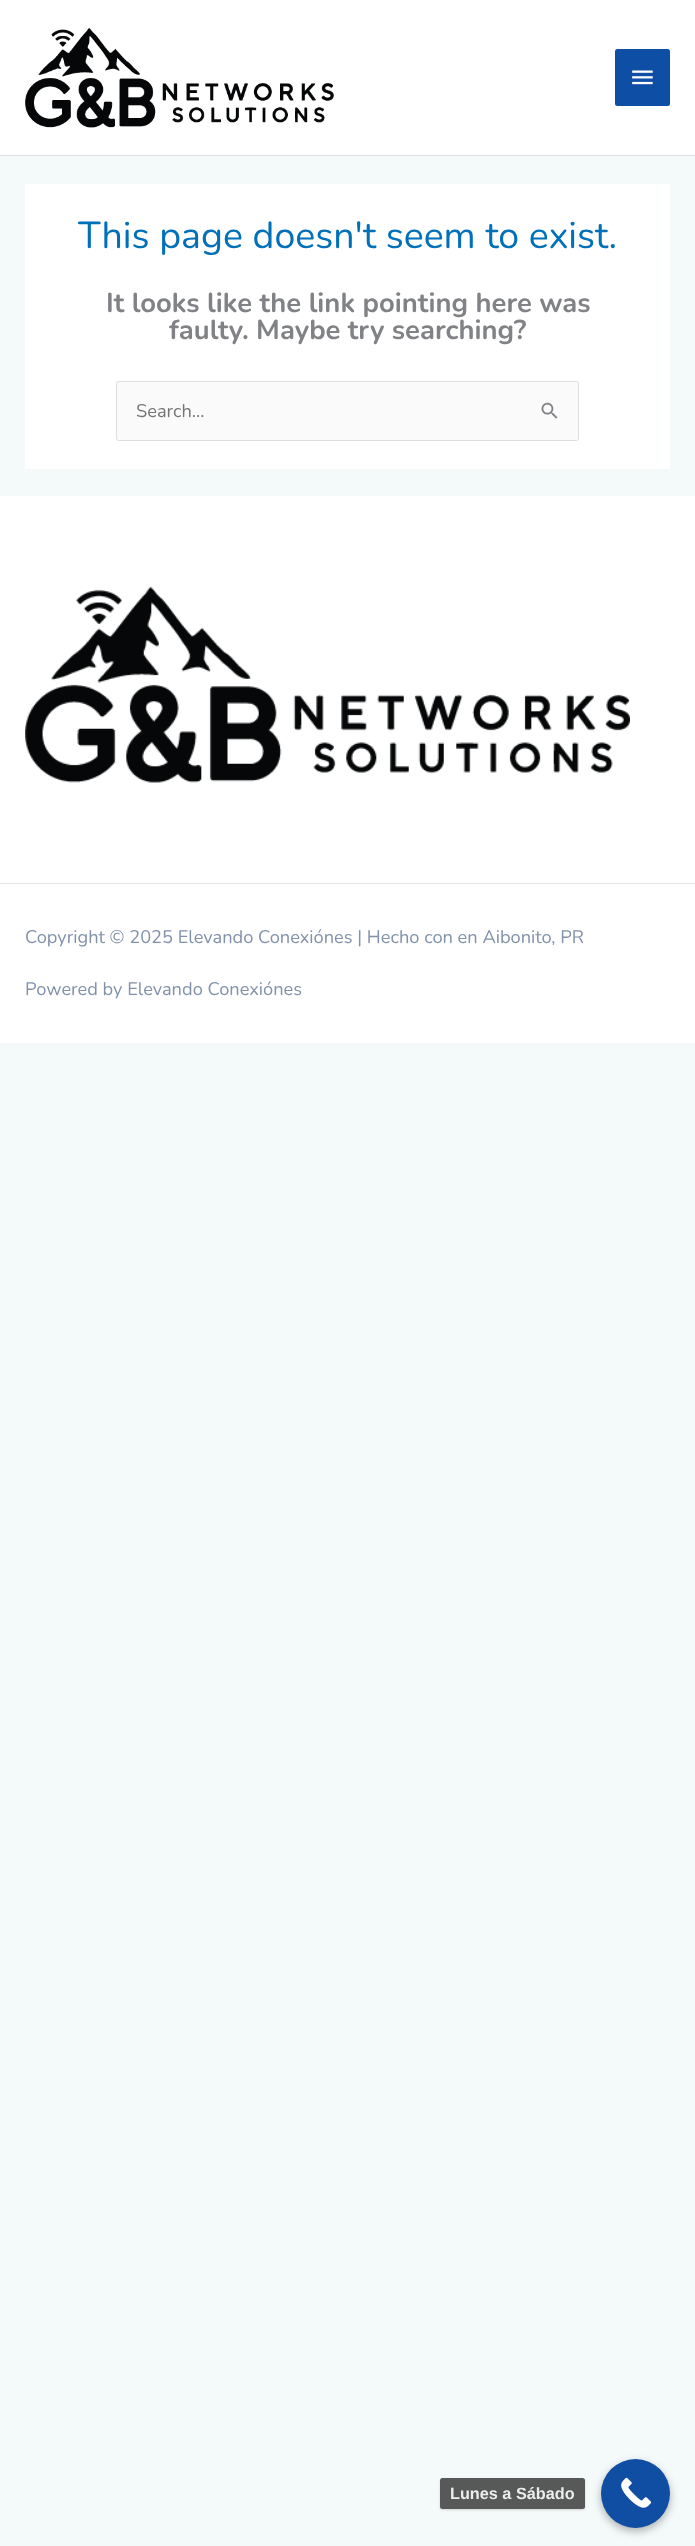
(async () => {
  const canvas = document.querySelector("canvas");
  canvas.width = 695;
  canvas.height = 2546;
  const ctx = canvas.getContext("2d");
  ctx.miterLimit = 4;
  ctx.fontKerning = "normal";
  async function loadImage(src) {
    const img = new Image();
    img.src = src;
    await img.decode();
    return img;
  }
  let path;

  ctx.fillStyle = "#f4f9f9";
  ctx.fillRect(0, 0, 695, 2546);
  ctx.fillStyle = "#ffffff";
  ctx.fillRect(0, 0, 695, 155);
  ctx.fillStyle = "#dddddd";
  ctx.fillRect(0, 155, 695, 1);
  ctx.drawImage(await loadImage("img/1.png"), 25, 27, 309, 101);
  ctx.fillStyle = "#0f4ea5";
  ctx.beginPath();
  ctx.roundRect(615, 49, 55, 57, 2.5);
  ctx.fill();
  ctx.drawImage(await loadImage("img/2.png"), 632, 70, 21, 15);
  ctx.fillStyle = "#ffffff";
  ctx.fillRect(25, 184, 645, 285);
  ctx.fillStyle = "#fafafa";
  ctx.beginPath();
  ctx.roundRect(116.5, 381.5, 462, 59, 2);
  ctx.fill();
  ctx.strokeStyle = "#dddddd";
  ctx.stroke();
  ctx.drawImage(await loadImage("img/3.png"), 541, 402, 17, 17);
  ctx.fillStyle = "#ffffff";
  ctx.fillRect(0, 496, 695, 387);
  ctx.drawImage(await loadImage("img/4.png"), 25, 586, 605, 197);
  ctx.fillStyle = "#e5e5e5";
  ctx.fillRect(0, 883, 695, 1);
  ctx.fillStyle = "#ffffff";
  ctx.fillRect(0, 884, 695, 159);
  ctx.fillStyle = "rgba(0, 0, 0, 0.3)";
  ctx.filter = "blur(4px)";
  ctx.beginPath();
  ctx.roundRect(601, 2463, 69, 68, 34);
  ctx.fill();
  ctx.filter = "none";
  ctx.fillStyle = "#104ea4";
  ctx.beginPath();
  ctx.arc(635.5, 2493.5, 34.5, 0, Math.PI * 2);
  ctx.fill();
  ctx.drawImage(await loadImage("img/5.png"), 621, 2477, 31, 31);
  ctx.save();
  path = new Path2D("M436 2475H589V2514H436ZM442.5 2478H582.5C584 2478 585 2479 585 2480.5V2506.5C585 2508 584 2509 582.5 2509H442.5C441 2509 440 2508 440 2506.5V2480.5C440 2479 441 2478 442.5 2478Z");
  ctx.clip(path, "evenodd");
  ctx.fillStyle = "rgba(0, 0, 0, 0.15)";
  ctx.filter = "blur(1px)";
  ctx.beginPath();
  ctx.roundRect(440, 2479, 145, 31, 2.5);
  ctx.fill();
  ctx.filter = "none";
  ctx.restore();
  ctx.fillStyle = "rgba(70, 70, 70, 0.9)";
  ctx.beginPath();
  ctx.roundRect(440, 2478, 145, 31, 2.5);
  ctx.fill();
  ctx.font = "37.5px Nunito";
  ctx.fillStyle = "#0170b9";
  ctx.fillText("This page doesn't seem to exist.", 78, 248);
  ctx.font = "bold 27.4px Nunito";
  ctx.fillStyle = "#808285";
  ctx.fillText("It looks like the link pointing here was", 106, 312);
  ctx.fillText("faulty. Maybe try searching?", 169, 339);
  ctx.font = "18.25px Nunito";
  ctx.fillStyle = "#757575";
  ctx.fillText("Search...", 136, 417);
  ctx.fillStyle = "#8192aa";
  ctx.fillText("Copyright © 2025 Elevando Conexiónes | Hecho con en Aibonito, PR", 25, 943);
  ctx.fillText("Powered by Elevando Conexiónes", 25, 995);
  ctx.font = "bold 16.25px Liberation Sans";
  ctx.fillStyle = "#ececec";
  ctx.fillText("Lunes a Sábado", 450, 2499);
})();
